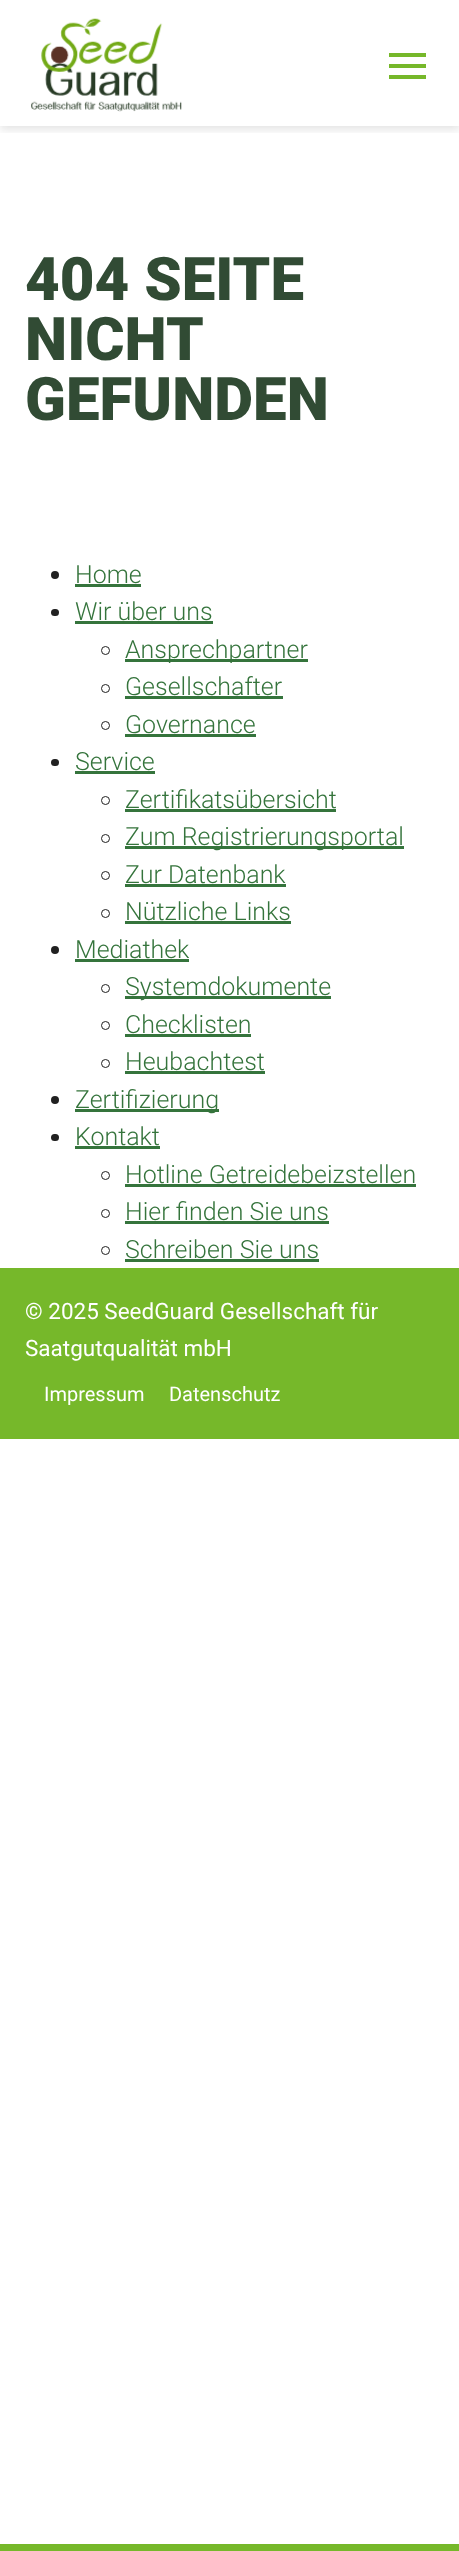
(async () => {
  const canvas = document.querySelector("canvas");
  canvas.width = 459;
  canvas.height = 2551;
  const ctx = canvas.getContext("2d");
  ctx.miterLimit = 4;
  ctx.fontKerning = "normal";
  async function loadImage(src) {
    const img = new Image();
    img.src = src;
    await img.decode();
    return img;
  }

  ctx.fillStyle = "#ffffff";
  ctx.fillRect(0, 0, 459, 2551);
  ctx.save();
  ctx.beginPath();
  ctx.rect(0, 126, 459, 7);
  ctx.clip();
  ctx.fillStyle = "rgba(0, 0, 0, 0.1)";
  ctx.filter = "blur(4px)";
  ctx.beginPath();
  ctx.rect(0, 4, 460, 126);
  ctx.fill();
  ctx.filter = "none";
  ctx.restore();
  ctx.drawImage(await loadImage("img/1.png"), 31, 18, 151, 94);
  for (const [x, y, w, h, color] of [
    [389, 64, 37, 4, "#76b82a"],
    [389, 53, 37, 4, "#76b82a"],
    [389, 75, 37, 4, "#76b82a"],
  ]) {
    ctx.fillStyle = color;
    ctx.fillRect(x, y, w, h);
  }
  ctx.fillStyle = "#212121";
  ctx.beginPath();
  ctx.arc(55, 575, 4, 0, Math.PI * 2);
  ctx.fill();
  ctx.fillStyle = "#35743c";
  ctx.fillRect(75, 584, 66, 3);
  ctx.fillStyle = "#212121";
  ctx.beginPath();
  ctx.roundRect(51, 609, 8, 7, 3.5);
  ctx.fill();
  ctx.fillStyle = "#35743c";
  ctx.fillRect(75, 621, 138, 3);
  ctx.beginPath();
  ctx.arc(105.5, 650.5, 4, 0, Math.PI * 2);
  ctx.strokeStyle = "#212121";
  ctx.stroke();
  ctx.fillRect(125, 659, 183, 3);
  ctx.beginPath();
  ctx.arc(105.5, 688.5, 4, 0, Math.PI * 2);
  ctx.stroke();
  ctx.fillRect(125, 696, 158, 3);
  ctx.beginPath();
  ctx.arc(105.5, 725.5, 4, 0, Math.PI * 2);
  ctx.stroke();
  ctx.fillRect(125, 734, 131, 3);
  ctx.fillStyle = "#212121";
  ctx.beginPath();
  ctx.roundRect(51, 759, 8, 7, 3.5);
  ctx.fill();
  ctx.fillStyle = "#35743c";
  ctx.fillRect(75, 771, 80, 3);
  ctx.beginPath();
  ctx.arc(105.5, 800.5, 4, 0, Math.PI * 2);
  ctx.stroke();
  ctx.fillRect(125, 809, 211, 3);
  ctx.beginPath();
  ctx.arc(105.5, 838.5, 4, 0, Math.PI * 2);
  ctx.stroke();
  ctx.fillRect(125, 846, 279, 3);
  ctx.beginPath();
  ctx.arc(105.5, 875.5, 4, 0, Math.PI * 2);
  ctx.stroke();
  ctx.fillRect(125, 884, 161, 3);
  ctx.beginPath();
  ctx.arc(105.5, 913.5, 4, 0, Math.PI * 2);
  ctx.stroke();
  ctx.fillRect(125, 921, 166, 3);
  ctx.fillStyle = "#212121";
  ctx.beginPath();
  ctx.arc(55, 950, 4, 0, Math.PI * 2);
  ctx.fill();
  ctx.fillStyle = "#35743c";
  ctx.fillRect(75, 959, 114, 3);
  ctx.beginPath();
  ctx.arc(105.5, 988.5, 4, 0, Math.PI * 2);
  ctx.stroke();
  ctx.fillRect(125, 996, 206, 3);
  ctx.beginPath();
  ctx.arc(105.5, 1025.5, 4, 0, Math.PI * 2);
  ctx.stroke();
  ctx.fillRect(125, 1034, 126, 3);
  ctx.beginPath();
  ctx.arc(105.5, 1063.5, 4, 0, Math.PI * 2);
  ctx.stroke();
  ctx.fillRect(125, 1071, 140, 3);
  ctx.fillStyle = "#212121";
  ctx.beginPath();
  ctx.arc(55, 1100, 4, 0, Math.PI * 2);
  ctx.fill();
  ctx.fillStyle = "#35743c";
  ctx.fillRect(75, 1109, 144, 3);
  ctx.fillStyle = "#212121";
  ctx.beginPath();
  ctx.roundRect(51, 1134, 8, 7, 3.5);
  ctx.fill();
  ctx.fillStyle = "#35743c";
  ctx.fillRect(75, 1146, 85, 3);
  ctx.beginPath();
  ctx.arc(105.5, 1175.5, 4, 0, Math.PI * 2);
  ctx.stroke();
  ctx.fillRect(125, 1184, 291, 3);
  ctx.beginPath();
  ctx.arc(105.5, 1213.5, 4, 0, Math.PI * 2);
  ctx.stroke();
  ctx.fillRect(125, 1221, 204, 3);
  ctx.beginPath();
  ctx.arc(105.5, 1250.5, 4, 0, Math.PI * 2);
  ctx.stroke();
  for (const [x, y, w, h, color] of [
    [125, 1259, 194, 3, "#35743c"],
    [0, 1268, 459, 171, "#76b82a"],
    [0, 2544, 459, 7, "#76b82a"],
  ]) {
    ctx.fillStyle = color;
    ctx.fillRect(x, y, w, h);
  }
  ctx.font = "900 60px Roboto";
  ctx.fillStyle = "#314b34";
  for (const [text, x, y] of [
    ["404 SEITE", 25, 300],
    ["NICHT", 25, 360],
    ["GEFUNDEN", 25, 420],
  ]) {
    ctx.fillText(text, x, y);
  }
  ctx.font = "300 25px Roboto";
  ctx.fillStyle = "#35743c";
  for (const [text, x, y] of [
    ["Home", 75, 583],
    ["Wir über uns", 75, 620],
    ["Ansprechpartner", 125, 658],
    ["Gesellschafter", 125, 695],
    ["Governance", 125, 733],
    ["Service", 75, 770],
    ["Zertifikatsübersicht", 125, 808],
    ["Zum Registrierungsportal", 125, 845],
    ["Zur Datenbank", 125, 883],
    ["Nützliche Links", 125, 920],
    ["Mediathek", 75, 958],
    ["Systemdokumente", 125, 995],
    ["Checklisten", 125, 1033],
    ["Heubachtest", 125, 1070],
    ["Zertifizierung", 75, 1108],
    ["Kontakt", 75, 1145],
    ["Hotline Getreidebeizstellen", 125, 1183],
    ["Hier finden Sie uns", 125, 1220],
    ["Schreiben Sie uns", 125, 1258],
  ]) {
    ctx.fillText(text, x, y);
  }
  ctx.font = "22.5px Roboto";
  ctx.fillStyle = "#ffffff";
  ctx.fillText("© 2025 SeedGuard Gesellschaft für", 25, 1319);
  ctx.fillText("Saatgutqualität mbH", 25, 1356);
  ctx.font = "20px Roboto";
  ctx.fillText("Impressum", 44, 1401);
  ctx.fillText("Datenschutz", 169, 1401);
})();
